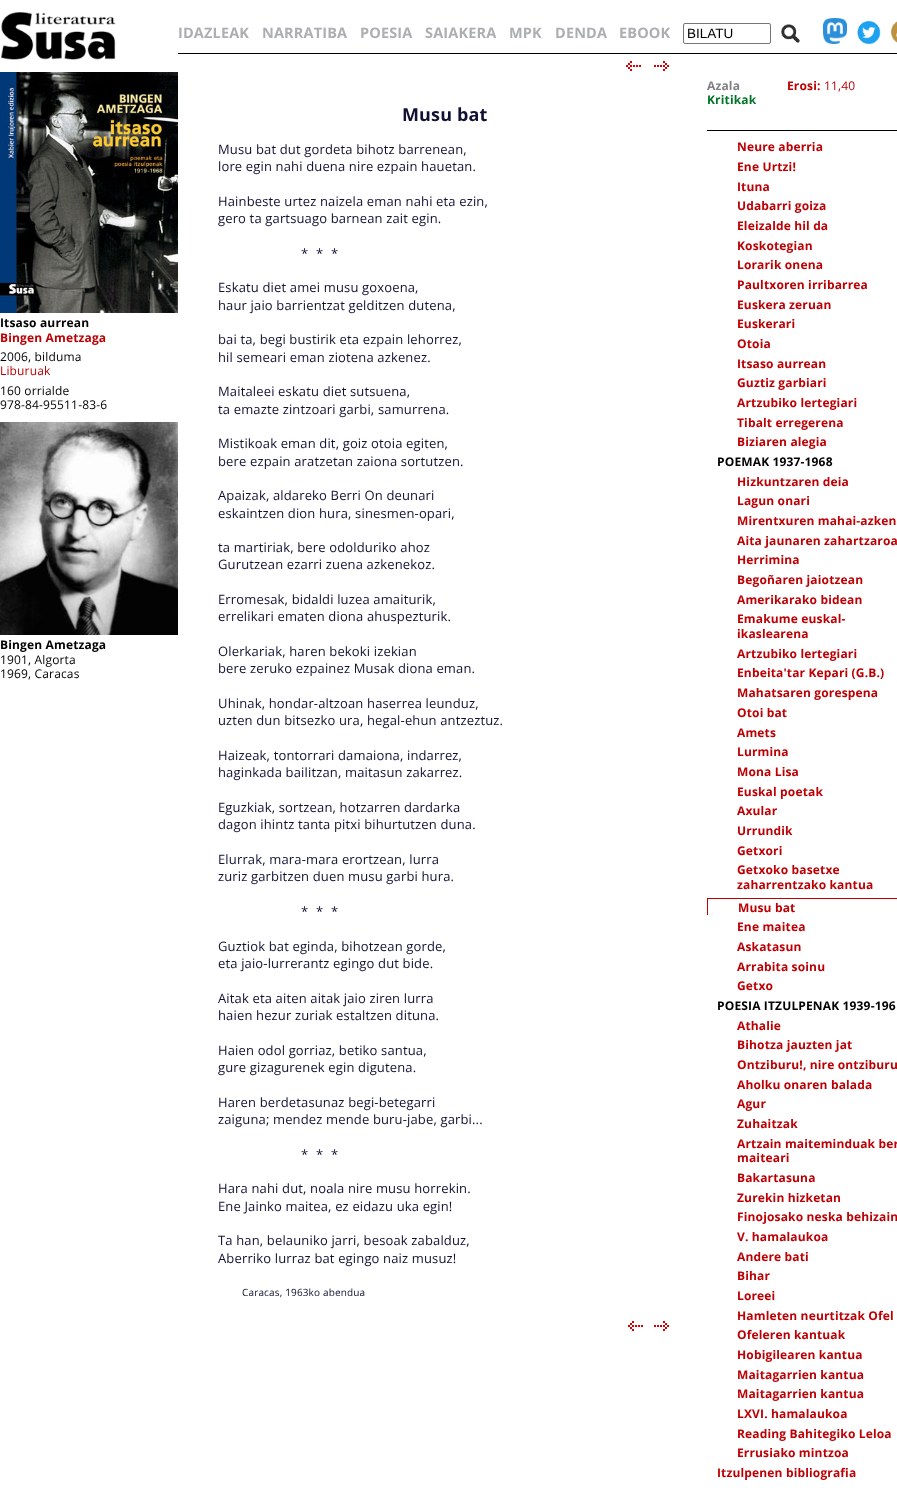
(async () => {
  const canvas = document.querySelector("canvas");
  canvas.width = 897;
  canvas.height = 1500;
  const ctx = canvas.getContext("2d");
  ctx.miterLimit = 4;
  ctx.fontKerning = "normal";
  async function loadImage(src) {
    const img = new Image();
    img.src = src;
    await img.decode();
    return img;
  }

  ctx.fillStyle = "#ffffff";
  ctx.fillRect(0, 0, 897, 1500);
  ctx.drawImage(await loadImage("img/1.png"), 0, 12, 116, 48);
  ctx.drawImage(await loadImage("img/2.png"), 0, 72, 178, 241);
  ctx.drawImage(await loadImage("img/3.png"), 0, 422, 178, 213);
  ctx.fillStyle = "#000000";
  ctx.fillRect(178, 53, 719, 1);
  ctx.beginPath();
  ctx.roundRect(683.5, 23.5, 87, 20, 1.5);
  ctx.strokeStyle = "#767676";
  ctx.stroke();
  ctx.drawImage(await loadImage("img/4.png"), 781, 24, 19, 19);
  ctx.drawImage(await loadImage("img/5.png"), 823, 18, 24, 26);
  ctx.drawImage(await loadImage("img/6.png"), 857, 21, 24, 23);
  ctx.drawImage(await loadImage("img/7.png"), 891, 21, 6, 22);
  ctx.drawImage(await loadImage("img/8.png"), 626, 61, 15, 10);
  ctx.drawImage(await loadImage("img/9.png"), 654, 61, 15, 10);
  ctx.drawImage(await loadImage("img/8.png"), 628, 1321, 15, 10);
  ctx.drawImage(await loadImage("img/9.png"), 654, 1321, 15, 10);
  for (const [x, y, w, h, color] of [
    [707, 130, 190, 1, "#000000"],
    [707, 898, 190, 1, "#bc0005"],
    [707, 898, 1, 17, "#bc0005"],
  ]) {
    ctx.fillStyle = color;
    ctx.fillRect(x, y, w, h);
  }
  ctx.letterSpacing = "0.15px";
  ctx.font = "bold 12px Open Sans";
  ctx.fillStyle = "#000000";
  ctx.fillText("Itsaso aurrean", 0, 327);
  ctx.fillStyle = "#bc0004";
  ctx.fillText("Bingen Ametzaga", 0, 342);
  ctx.font = "12px Open Sans";
  ctx.fillStyle = "#000000";
  ctx.fillText("2006, bilduma", 0, 361);
  ctx.fillStyle = "#bc0004";
  ctx.fillText("Liburuak", 0, 375);
  ctx.fillStyle = "#000000";
  ctx.fillText("160 orrialde", 0, 395);
  ctx.fillText("978-84-95511-83-6", 0, 409);
  ctx.font = "bold 12px Open Sans";
  ctx.fillText("Bingen Ametzaga", 0, 649);
  ctx.font = "12px Open Sans";
  ctx.fillText("1901, Algorta", 0, 664);
  ctx.fillText("1969, Caracas", 0, 678);
  ctx.font = "bold 14.5px Open Sans";
  ctx.fillStyle = "#adaeb2";
  for (const [text, x, y] of [
    ["IDAZLEAK", 178, 38],
    ["NARRATIBA", 262, 38],
    ["POESIA", 360, 38],
    ["SAIAKERA", 425, 38],
    ["MPK", 509, 38],
    ["DENDA", 555, 38],
    ["EBOOK", 619, 38],
  ]) {
    ctx.fillText(text, x, y);
  }
  ctx.letterSpacing = "0px";
  ctx.font = "13.5px Liberation Sans";
  ctx.fillStyle = "#000000";
  ctx.fillText("BILATU", 687, 38);
  ctx.letterSpacing = "0.15px";
  ctx.font = "bold 18px Open Sans";
  ctx.fillStyle = "#111133";
  ctx.fillText("Musu bat", 402, 121);
  ctx.font = "13px Open Sans";
  for (const [text, x, y] of [
    ["Musu bat dut gordeta bihotz barrenean,", 218, 154],
    ["lore egin nahi duena nire ezpain hauetan.", 218, 171],
    ["Hainbeste urtez naizela eman nahi eta ezin,", 218, 206],
    ["gero ta gartsuago barnean zait egin.", 218, 223],
    ["*", 301, 258],
    ["*", 316, 258],
    ["*", 331, 258],
    ["Eskatu diet amei musu goxoena,", 218, 292],
    ["haur jaio barrientzat gelditzen dutena,", 218, 310],
    ["bai ta, begi bustirik eta ezpain lehorrez,", 218, 344],
    ["hil semeari eman ziotena azkenez.", 218, 362],
    ["Maitaleei eskatu diet sutsuena,", 218, 396],
    ["ta emazte zintzoari garbi, samurrena.", 218, 414],
    ["Mistikoak eman dit, goiz otoia egiten,", 218, 448],
    ["bere ezpain aratzetan zaiona sortutzen.", 218, 466],
    ["Apaizak, aldareko Berri On deunari", 218, 500],
    ["eskaintzen dion hura, sinesmen-opari,", 218, 518],
    ["ta martiriak, bere odolduriko ahoz", 218, 552],
    ["Gurutzean ezarri zuena azkenekoz.", 218, 569],
    ["Erromesak, bidaldi luzea amaiturik,", 218, 604],
    ["errelikari ematen diona ahuspezturik.", 218, 621],
    ["Olerkariak, haren bekoki izekian", 218, 656],
    ["bere zeruko ezpainez Musak diona eman.", 218, 673],
    ["Uhinak, hondar-altzoan haserrea leunduz,", 218, 708],
    ["uzten dun bitsezko ura, hegal-ehun antzeztuz.", 218, 725],
    ["Haizeak, tontorrari damaiona, indarrez,", 218, 760],
    ["haginkada bailitzan, maitasun zakarrez.", 218, 777],
    ["Eguzkiak, sortzean, hotzarren dardarka", 218, 812],
    ["dagon ihintz tanta pitxi bihurtutzen duna.", 218, 829],
    ["Elurrak, mara-mara erortzean, lurra", 218, 864],
    ["zuriz garbitzen duen musu garbi hura.", 218, 881],
    ["*", 301, 916],
    ["*", 316, 916],
    ["*", 331, 916],
    ["Guztiok bat eginda, bihotzean gorde,", 218, 951],
    ["eta jaio-lurrerantz egingo dut bide.", 218, 968],
    ["Aitak eta aiten aitak jaio ziren lurra", 218, 1003],
    ["haien hezur zuriak estaltzen dituna.", 218, 1020],
    ["Haien odol gorriaz, betiko santua,", 218, 1055],
    ["gure gizagurenek egin digutena.", 218, 1072],
    ["Haren berdetasunaz begi-betegarri", 218, 1107],
    ["zaiguna; mendez mende buru-jabe, garbi...", 218, 1124],
    ["*", 301, 1159],
    ["*", 316, 1159],
    ["*", 331, 1159],
    ["Hara nahi dut, noala nire musu horrekin.", 218, 1193],
    ["Ene Jainko maitea, ez eidazu uka egin!", 218, 1211],
    ["Ta han, belauniko jarri, besoak zabalduz,", 218, 1245],
    ["Aberriko lurraz bat egingo naiz musuz!", 218, 1263],
  ]) {
    ctx.fillText(text, x, y);
  }
  ctx.font = "10px Open Sans";
  ctx.fillText("Caracas, 1963ko abendua", 242, 1296);
  ctx.font = "bold 12px Open Sans";
  ctx.fillStyle = "#807f84";
  ctx.fillText("Azala", 707, 90);
  ctx.fillStyle = "#007528";
  ctx.fillText("Kritikak", 707, 104);
  ctx.fillStyle = "#bc0004";
  ctx.fillText("Erosi:", 787, 90);
  ctx.font = "12px Open Sans";
  ctx.fillText("11,40", 824, 90);
  ctx.font = "bold 12px Open Sans";
  for (const [text, x, y] of [
    ["Neure aberria", 737, 151],
    ["Ene Urtzi!", 737, 171],
    ["Ituna", 737, 191],
    ["Udabarri goiza", 737, 210],
    ["Eleizalde hil da", 737, 230],
    ["Koskotegian", 737, 250],
    ["Lorarik onena", 737, 269],
    ["Paultxoren irribarrea", 737, 289],
    ["Euskera zeruan", 737, 309],
    ["Euskerari", 737, 328],
    ["Otoia", 737, 348],
    ["Itsaso aurrean", 737, 368],
    ["Guztiz garbiari", 737, 387],
    ["Artzubiko lertegiari", 737, 407],
    ["Tibalt erregerena", 737, 427],
    ["Biziaren alegia", 737, 446],
  ]) {
    ctx.fillText(text, x, y);
  }
  ctx.fillStyle = "#000000";
  ctx.fillText("POEMAK 1937-1968", 717, 466);
  ctx.fillStyle = "#bc0004";
  for (const [text, x, y] of [
    ["Hizkuntzaren deia", 737, 486],
    ["Lagun onari", 737, 505],
    ["Mirentxuren mahai-azken", 737, 525],
    ["Aita jaunaren zahartzaroa", 737, 545],
    ["Herrimina", 737, 564],
    ["Begoñaren jaiotzean", 737, 584],
    ["Amerikarako bidean", 737, 604],
    ["Emakume euskal-", 737, 623],
    ["ikaslearena", 737, 638],
    ["Artzubiko lertegiari", 737, 658],
    ["Enbeita'tar Kepari (G.B.)", 737, 677],
    ["Mahatsaren gorespena", 737, 697],
    ["Otoi bat", 737, 717],
    ["Amets", 737, 737],
    ["Lurmina", 737, 756],
    ["Mona Lisa", 737, 776],
    ["Euskal poetak", 737, 796],
    ["Axular", 737, 815],
    ["Urrundik", 737, 835],
    ["Getxori", 737, 855],
    ["Getxoko basetxe", 737, 874],
    ["zaharrentzako kantua", 737, 889],
    ["Musu bat", 738, 912],
    ["Ene maitea", 737, 931],
    ["Askatasun", 737, 951],
    ["Arrabita soinu", 737, 971],
    ["Getxo", 737, 990],
  ]) {
    ctx.fillText(text, x, y);
  }
  ctx.fillStyle = "#000000";
  ctx.fillText("POESIA ITZULPENAK 1939-196", 717, 1010);
  ctx.fillStyle = "#bc0004";
  for (const [text, x, y] of [
    ["Athalie", 737, 1030],
    ["Bihotza jauzten jat", 737, 1049],
    ["Ontziburu!, nire ontziburu", 737, 1069],
    ["Aholku onaren balada", 737, 1089],
    ["Agur", 737, 1108],
    ["Zuhaitzak", 737, 1128],
    ["Artzain maiteminduak ber", 737, 1148],
    ["maiteari", 737, 1162],
    ["Bakartasuna", 737, 1182],
    ["Zurekin hizketan", 737, 1202],
    ["Finojosako neska behizain", 737, 1221],
    ["V. hamalaukoa", 737, 1241],
    ["Andere bati", 737, 1261],
    ["Bihar", 737, 1280],
    ["Loreei", 737, 1300],
    ["Hamleten neurtitzak Ofel", 737, 1320],
    ["Ofeleren kantuak", 737, 1339],
    ["Hobigilearen kantua", 737, 1359],
    ["Maitagarrien kantua", 737, 1379],
    ["Maitagarrien kantua", 737, 1398],
    ["LXVI. hamalaukoa", 737, 1418],
    ["Reading Bahitegiko Leloa", 737, 1438],
    ["Errusiako mintzoa", 737, 1457],
    ["Itzulpenen bibliografia", 717, 1477],
  ]) {
    ctx.fillText(text, x, y);
  }
})();
